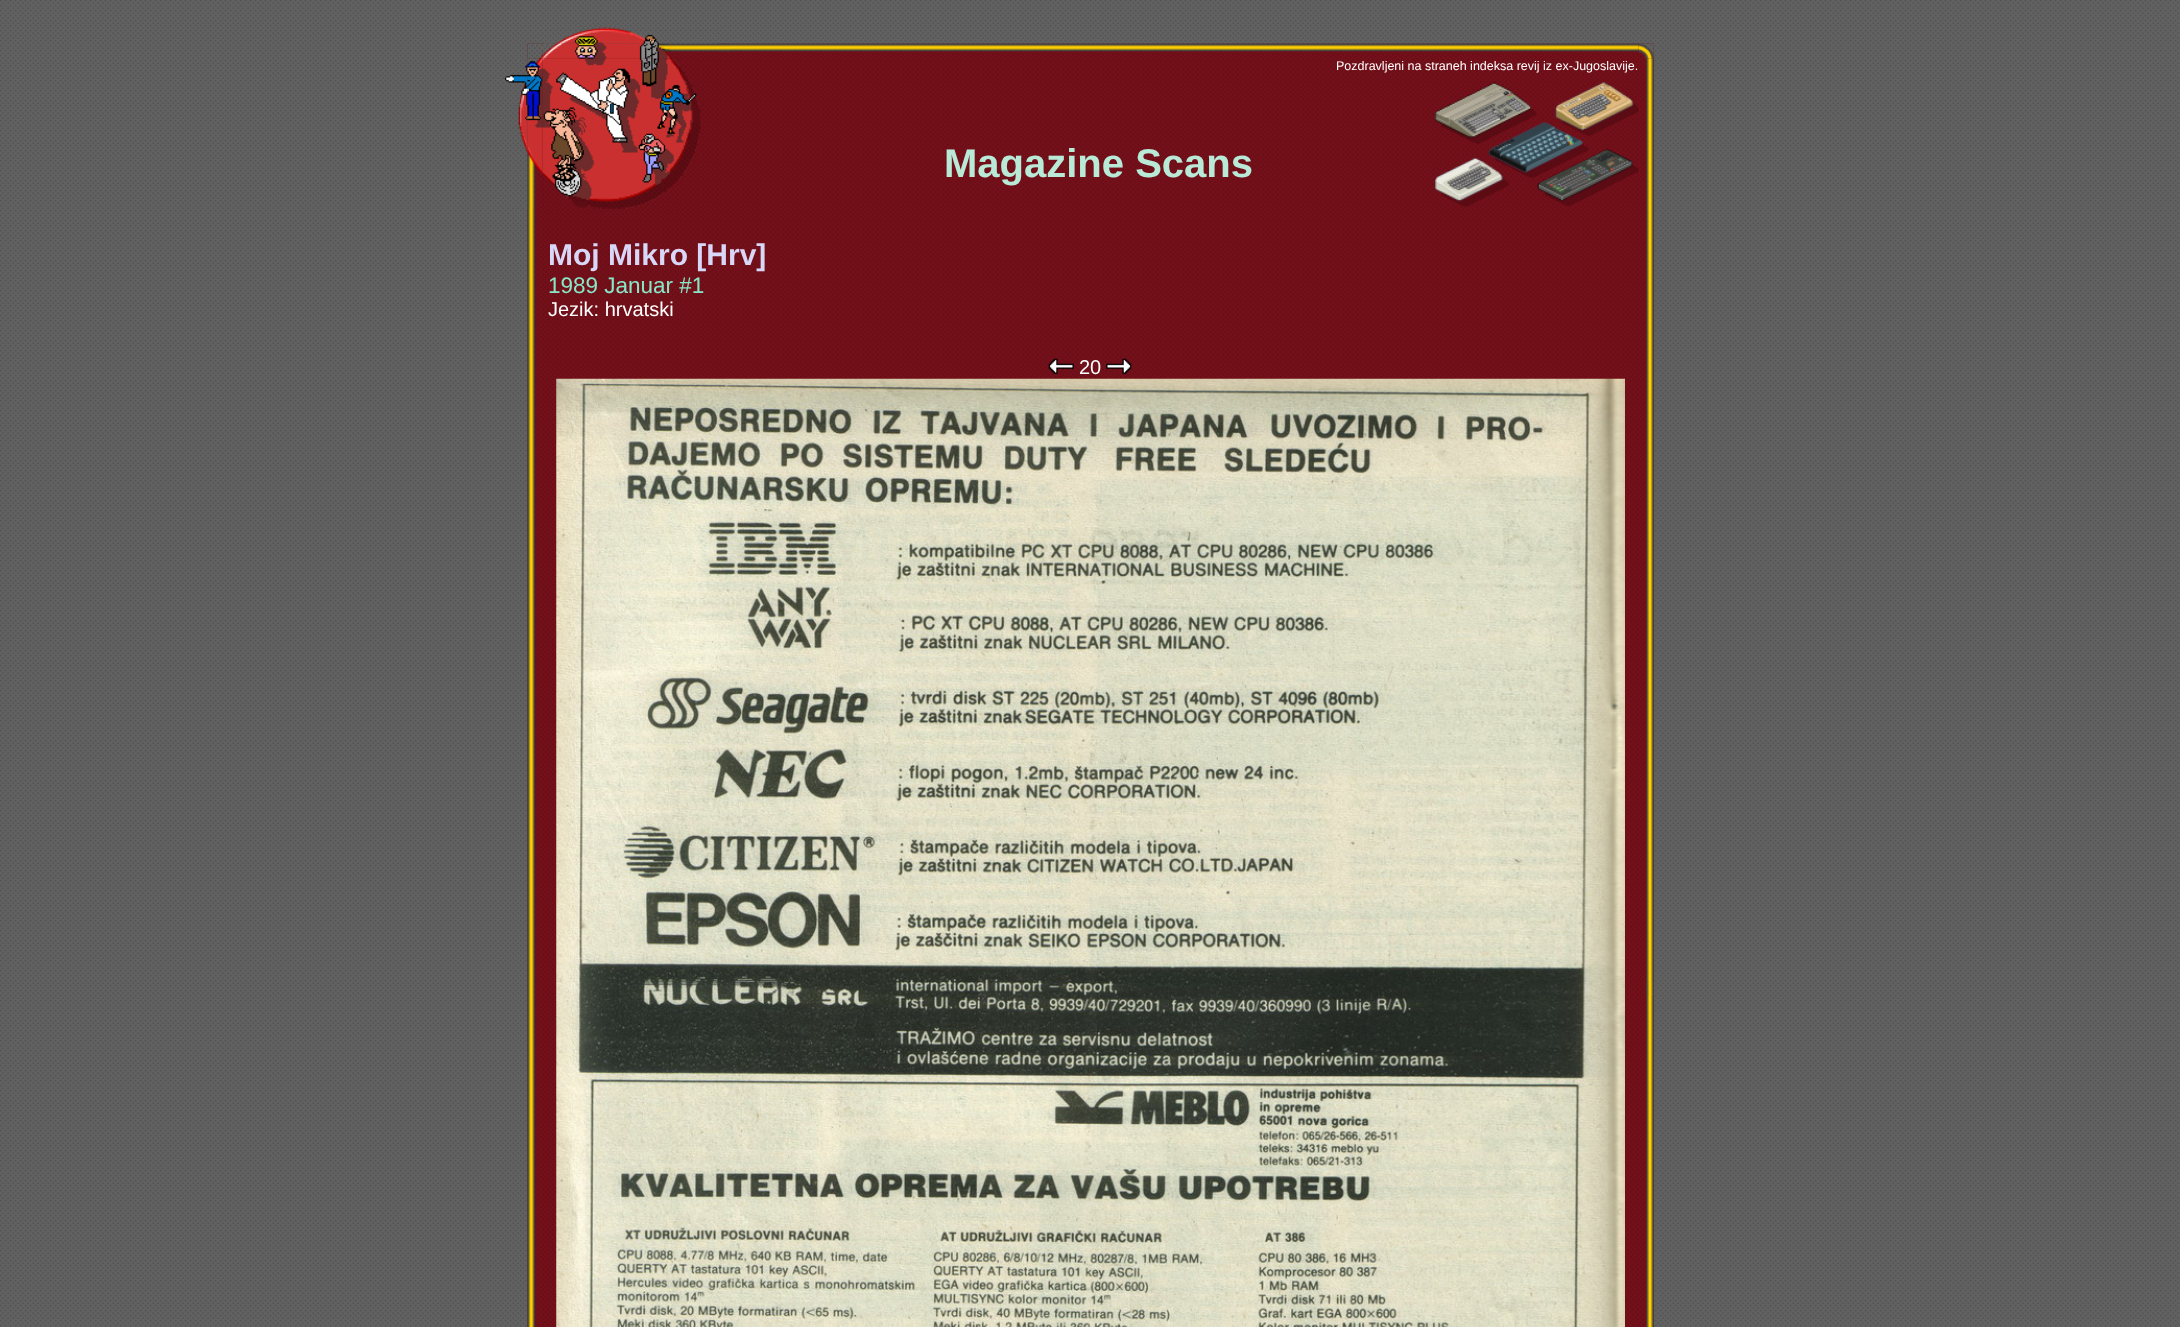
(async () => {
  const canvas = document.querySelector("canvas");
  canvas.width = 2180;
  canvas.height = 1327;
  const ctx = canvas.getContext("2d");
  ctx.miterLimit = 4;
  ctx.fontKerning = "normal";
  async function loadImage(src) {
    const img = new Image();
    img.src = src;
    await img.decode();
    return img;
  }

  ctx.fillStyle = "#616161";
  ctx.fillRect(0, 0, 2180, 1327);
  ctx.drawImage(await loadImage("img/1.png"), 0, 0, 2179, 1327);
  ctx.drawImage(await loadImage("img/4.png"), 527, 43, 1127, 1284);
  ctx.drawImage(await loadImage("img/6.png"), 542, 43, 1097, 9);
  ctx.drawImage(await loadImage("img/2.png"), 542, 27, 177, 17);
  ctx.drawImage(await loadImage("img/9.png"), 527, 58, 9, 1269);
  ctx.drawImage(await loadImage("img/3.png"), 504, 58, 24, 151);
  ctx.drawImage(await loadImage("img/5.png"), 527, 43, 16, 16);
  ctx.drawImage(await loadImage("img/7.png"), 542, 43, 188, 16);
  ctx.drawImage(await loadImage("img/16.png"), 1646, 58, 8, 1269);
  ctx.drawImage(await loadImage("img/8.png"), 1638, 43, 16, 16);
  ctx.drawImage(await loadImage("img/10.png"), 527, 58, 16, 151);
  ctx.drawImage(await loadImage("img/11.png"), 542, 58, 159, 151);
  ctx.drawImage(await loadImage("img/12.png"), 1435, 82, 204, 125);
  ctx.drawImage(await loadImage("img/13.png"), 1048, 358, 26, 16);
  ctx.drawImage(await loadImage("img/14.png"), 1106, 358, 26, 16);
  ctx.drawImage(await loadImage("img/15.png"), 556, 378, 1069, 949);
  ctx.drawImage(await loadImage("img/17.png"), 1646, 981, 8, 15);
  ctx.font = "12.5px Liberation Sans";
  ctx.fillStyle = "#ffffff";
  ctx.fillText("Pozdravljeni na straneh indeksa revij iz ex-Jugoslavije.", 1336, 70);
  ctx.font = "bold 40px Liberation Sans";
  ctx.fillStyle = "#b9ead7";
  ctx.fillText("Magazine Scans", 944, 177);
  ctx.font = "bold 30px Liberation Sans";
  ctx.fillStyle = "#d9d7f7";
  ctx.fillText("Moj Mikro [Hrv]", 548, 265);
  ctx.font = "22.5px Liberation Sans";
  ctx.fillStyle = "#89e7c7";
  ctx.fillText("1989 Januar #1", 548, 293);
  ctx.font = "20px Liberation Sans";
  ctx.fillStyle = "#ffffff";
  ctx.fillText("Jezik: hrvatski", 548, 316);
  ctx.fillText("20", 1079, 374);
})();
